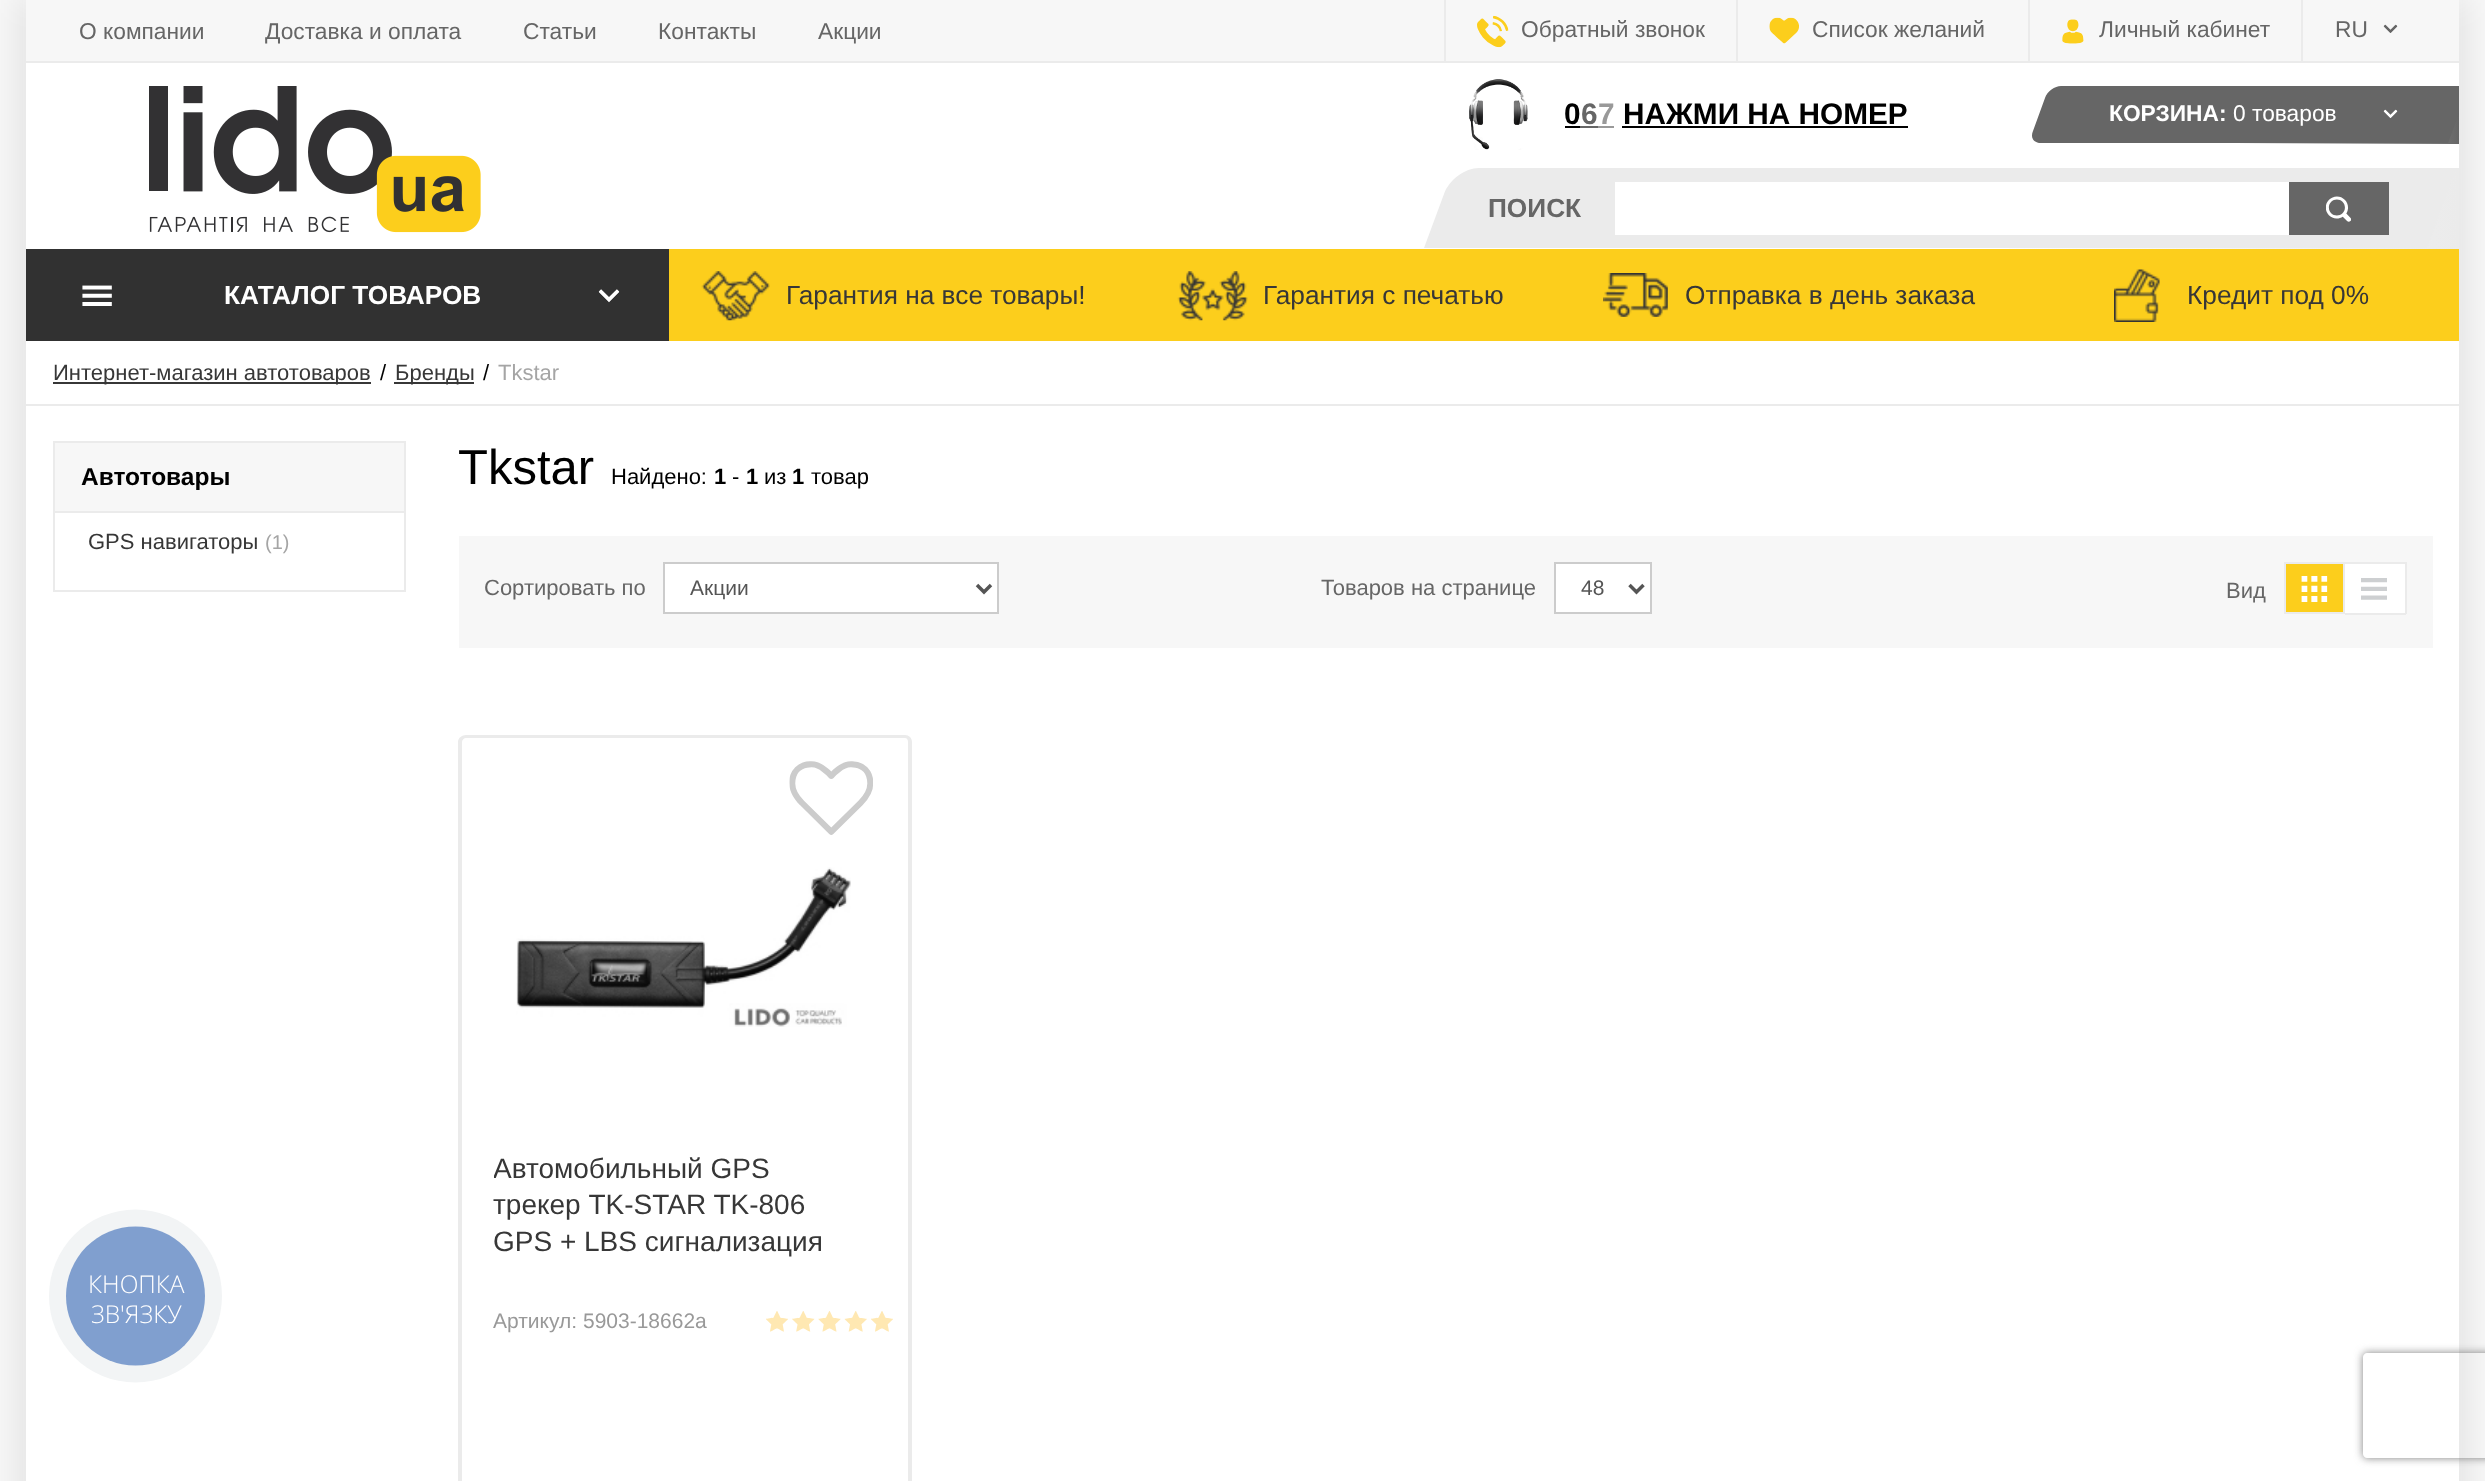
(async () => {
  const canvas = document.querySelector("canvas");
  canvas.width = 2485;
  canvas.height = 1481;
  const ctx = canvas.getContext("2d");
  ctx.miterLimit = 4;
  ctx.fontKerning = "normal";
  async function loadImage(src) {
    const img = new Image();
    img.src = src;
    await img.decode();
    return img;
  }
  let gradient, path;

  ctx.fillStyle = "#f7f7f7";
  ctx.fillRect(0, 0, 2485, 1481);
  ctx.fillStyle = "rgba(5, 5, 5, 0.1)";
  ctx.filter = "blur(17.5px)";
  ctx.beginPath();
  ctx.rect(23, -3, 2439, 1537);
  ctx.fill();
  ctx.filter = "none";
  for (const [x, y, w, h, color] of [
    [26, 63, 2433, 1418, "#ffffff"],
    [26, 0, 2433, 61, "#f7f7f7"],
    [1444, 0, 2, 61, "#ebebeb"],
  ]) {
    ctx.fillStyle = color;
    ctx.fillRect(x, y, w, h);
  }
  ctx.drawImage(await loadImage("img/1.png"), 1477, 15, 32, 33);
  ctx.fillRect(1736, 0, 2, 61);
  ctx.drawImage(await loadImage("img/2.png"), 1769, 17, 30, 27);
  ctx.fillRect(2028, 0, 2, 61);
  ctx.drawImage(await loadImage("img/3.png"), 2062, 19, 22, 25);
  ctx.fillRect(2301, 0, 2, 61);
  ctx.drawImage(await loadImage("img/4.png"), 2383, 24, 15, 9);
  ctx.fillRect(26, 61, 2433, 2);
  ctx.drawImage(await loadImage("img/5.png"), 149, 86, 332, 147);
  ctx.drawImage(await loadImage("img/6.png"), 1469, 79, 59, 71);
  for (const [x, y, w, h, color] of [
    [1565, 126, 15, 2, "#000000"],
    [1580, 126, 18, 2, "#666666"],
    [1598, 126, 16, 2, "#999999"],
    [1622, 126, 286, 2, "#000000"],
  ]) {
    ctx.fillStyle = color;
    ctx.fillRect(x, y, w, h);
  }
  gradient = ctx.createLinearGradient(2459, 115, 2013, 115);
  gradient.addColorStop(0, "#666666");
  gradient.addColorStop(0.5, "#ffffff");
  gradient.addColorStop(1, "#ffffff");
  ctx.fillStyle = gradient;
  ctx.fillRect(2240, 86, 219, 58);
  ctx.save();
  ctx.beginPath();
  ctx.rect(2013, 86, 446, 58);
  ctx.clip();
  ctx.fillStyle = "#666666";
  path = new Path2D("M2061 86H2469L2448 143H2041C2034 143 2030 138 2033 131L2045 98C2047 91 2055 86 2061 86Z");
  ctx.fill(path);
  ctx.restore();
  ctx.drawImage(await loadImage("img/7.png"), 2383, 109, 15, 9);
  gradient = ctx.createLinearGradient(2459, 208, 1430, 208);
  gradient.addColorStop(0, "#ebebeb");
  gradient.addColorStop(0.5, "#ffffff");
  gradient.addColorStop(1, "#ffffff");
  ctx.fillStyle = gradient;
  ctx.fillRect(2009, 168, 450, 81);
  ctx.fillStyle = "#ebebeb";
  path = new Path2D("M1479 168H2456L2427 248H1424L1444 194C1449 180 1465 168 1479 168Z");
  ctx.fill(path);
  ctx.fillStyle = "#ffffff";
  ctx.fillRect(1615, 182, 674, 53);
  ctx.fillStyle = "#666666";
  ctx.fillRect(2289, 182, 100, 53);
  ctx.drawImage(await loadImage("img/8.png"), 2326, 196, 25, 26);
  ctx.fillStyle = "#fcce1c";
  ctx.fillRect(669, 249, 1790, 92);
  ctx.fillStyle = "#313131";
  ctx.fillRect(26, 249, 643, 92);
  ctx.drawImage(await loadImage("img/9.png"), 82, 285, 30, 21);
  ctx.drawImage(await loadImage("img/10.png"), 598, 289, 22, 14);
  ctx.drawImage(await loadImage("img/11.png"), 701, 271, 69, 50);
  ctx.drawImage(await loadImage("img/12.png"), 1177, 271, 71, 50);
  ctx.drawImage(await loadImage("img/13.png"), 1603, 273, 65, 44);
  ctx.drawImage(await loadImage("img/14.png"), 2114, 269, 46, 53);
  for (const [x, y, w, h, color] of [
    [26, 404, 2433, 2, "#ebebeb"],
    [53, 382, 318, 2, "#373737"],
    [394, 382, 80, 2, "#373737"],
  ]) {
    ctx.fillStyle = color;
    ctx.fillRect(x, y, w, h);
  }
  ctx.fillStyle = "#f7f7f7";
  ctx.beginPath();
  ctx.rect(54, 442, 351, 70);
  ctx.fill();
  ctx.strokeStyle = "#ebebeb";
  ctx.lineWidth = 2;
  ctx.stroke();
  for (const [x, y, w, h, color] of [
    [404, 513, 2, 79, "#ebebeb"],
    [53, 590, 353, 2, "#ebebeb"],
    [53, 513, 2, 79, "#ebebeb"],
    [459, 536, 1974, 112, "#f7f7f7"],
  ]) {
    ctx.fillStyle = color;
    ctx.fillRect(x, y, w, h);
  }
  ctx.fillStyle = "#ffffff";
  ctx.beginPath();
  ctx.rect(664, 563, 334, 50);
  ctx.fill();
  ctx.strokeStyle = "#cccccc";
  ctx.stroke();
  path = new Path2D("M977 585L984 592L991 585");
  ctx.strokeStyle = "#555555";
  ctx.lineWidth = 3.5;
  ctx.stroke(path);
  ctx.beginPath();
  ctx.rect(1555, 563, 96, 50);
  ctx.fill();
  ctx.strokeStyle = "#cccccc";
  ctx.lineWidth = 2;
  ctx.stroke();
  path = new Path2D("M1629.5 585L1636.5 592L1643.5 585");
  ctx.strokeStyle = "#555555";
  ctx.lineWidth = 3.5;
  ctx.stroke(path);
  ctx.fillStyle = "#fcce1c";
  ctx.beginPath();
  ctx.rect(2285, 563, 59, 50);
  ctx.fill();
  ctx.strokeStyle = "#ebebeb";
  ctx.lineWidth = 2;
  ctx.stroke();
  ctx.drawImage(await loadImage("img/15.png"), 2301, 576, 27, 26);
  for (const [x, y, w, h, color] of [
    [2345, 564, 60, 49, "#ffffff"],
    [2345, 562, 61, 2, "#ebebeb"],
    [2405, 562, 2, 52, "#ebebeb"],
    [2345, 613, 61, 2, "#ebebeb"],
  ]) {
    ctx.fillStyle = color;
    ctx.fillRect(x, y, w, h);
  }
  ctx.drawImage(await loadImage("img/16.png"), 2361, 578, 26, 22);
  path = new Path2D("M466 735H905C909 735 912 738 912 742V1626H458V742C458 738 462 735 466 735ZM466 738H905C907 738 908 740 908 742V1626H462V742C462 740 464 738 466 738Z");
  ctx.fill(path, "evenodd");
  ctx.drawImage(await loadImage("img/17.png"), 789, 761, 84, 74);
  ctx.drawImage(await loadImage("img/18.png"), 516, 867, 335, 160);
  ctx.drawImage(await loadImage("img/19.png"), 766, 1311, 22, 21);
  ctx.drawImage(await loadImage("img/20.png"), 792, 1311, 23, 21);
  ctx.drawImage(await loadImage("img/21.png"), 818, 1311, 23, 21);
  ctx.drawImage(await loadImage("img/22.png"), 844, 1311, 23, 21);
  ctx.drawImage(await loadImage("img/19.png"), 871, 1311, 22, 21);
  ctx.fillStyle = "#f2f4f5";
  ctx.beginPath();
  ctx.arc(135.5, 1296, 86.5, 0, Math.PI * 2);
  ctx.fill();
  ctx.fillStyle = "#809fcf";
  ctx.beginPath();
  ctx.arc(135.5, 1296, 69.5, 0, Math.PI * 2);
  ctx.fill();
  ctx.save();
  path = new Path2D("M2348 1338H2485V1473H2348ZM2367 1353H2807C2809 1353 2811 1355 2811 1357V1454C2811 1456 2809 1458 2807 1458H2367C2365 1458 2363 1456 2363 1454V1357C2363 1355 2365 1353 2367 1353Z");
  ctx.clip(path, "evenodd");
  ctx.fillStyle = "#808080";
  ctx.filter = "blur(4.5px)";
  ctx.beginPath();
  ctx.roundRect(2363, 1353, 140, 105, 4);
  ctx.fill();
  ctx.filter = "none";
  ctx.restore();
  ctx.font = "22.75px Liberation Sans";
  ctx.fillStyle = "#666666";
  for (const [text, x, y] of [
    ["О компании", 79, 39],
    ["Доставка и оплата", 265, 39],
    ["Статьи", 523, 39],
    ["Контакты", 658, 39],
    ["Акции", 818, 39],
    ["Обратный звонок", 1521, 37],
    ["Список желаний", 1812, 37],
    ["Личный кабинет", 2099, 37],
    ["RU", 2335, 37],
  ]) {
    ctx.fillText(text, x, y);
  }
  ctx.font = "bold 29.75px Liberation Sans";
  ctx.fillStyle = "#000000";
  ctx.fillText("0", 1564, 124);
  ctx.fillStyle = "#666666";
  ctx.fillText("6", 1581, 124);
  ctx.fillStyle = "#999999";
  ctx.fillText("7", 1598, 124);
  ctx.fillStyle = "#000000";
  ctx.fillText("НАЖМИ НА НОМЕР", 1623, 124);
  ctx.font = "bold 22.75px Liberation Sans";
  ctx.fillStyle = "#ffffff";
  ctx.fillText("КОРЗИНА:", 2109, 121);
  ctx.font = "22.75px Liberation Sans";
  ctx.fillText("0 товаров", 2233, 121);
  ctx.font = "bold 26.25px Liberation Sans";
  ctx.fillStyle = "#666666";
  ctx.fillText("ПОИСК", 1488, 217);
  ctx.fillStyle = "#ffffff";
  ctx.fillText("КАТАЛОГ ТОВАРОВ", 224, 304);
  ctx.font = "26.25px Liberation Sans";
  ctx.fillStyle = "#373737";
  for (const [text, x, y] of [
    ["Гарантия на все товары!", 786, 304],
    ["Гарантия с печатью", 1263, 304],
    ["Отправка в день заказа", 1685, 304],
    ["Кредит под 0%", 2187, 304],
  ]) {
    ctx.fillText(text, x, y);
  }
  ctx.font = "22px Liberation Sans";
  ctx.fillText("Интернет-магазин автотоваров", 53, 380);
  ctx.fillStyle = "#000000";
  ctx.fillText("/", 380, 380);
  ctx.fillStyle = "#373737";
  ctx.fillText("Бренды", 395, 380);
  ctx.fillStyle = "#000000";
  ctx.fillText("/", 483, 380);
  ctx.fillStyle = "#a5a5a5";
  ctx.fillText("Tkstar", 498, 380);
  ctx.font = "bold 24.5px Liberation Sans";
  ctx.fillStyle = "#000000";
  ctx.fillText("Автотовары", 81, 485);
  ctx.font = "22px Liberation Sans";
  ctx.fillStyle = "#373737";
  ctx.fillText("GPS навигаторы", 88, 549);
  ctx.font = "20px Liberation Sans";
  ctx.fillStyle = "#a5a5a5";
  ctx.fillText("(1)", 265, 549);
  ctx.font = "49px Liberation Sans";
  ctx.fillStyle = "#000000";
  ctx.fillText("Tkstar", 458, 484);
  ctx.font = "22px Liberation Sans";
  ctx.fillText("Найдено:", 611, 484);
  ctx.font = "bold 22px Liberation Sans";
  ctx.fillText("1", 714, 484);
  ctx.font = "22px Liberation Sans";
  ctx.fillText("-", 732, 484);
  ctx.font = "bold 22px Liberation Sans";
  ctx.fillText("1", 746, 484);
  ctx.font = "22px Liberation Sans";
  ctx.fillText("из", 764, 484);
  ctx.font = "bold 22px Liberation Sans";
  ctx.fillText("1", 792, 484);
  ctx.font = "22px Liberation Sans";
  ctx.fillText("товар", 811, 484);
  ctx.fillStyle = "#666666";
  ctx.fillText("Сортировать по", 484, 595);
  ctx.font = "21px Liberation Sans";
  ctx.fillStyle = "#555555";
  ctx.fillText("Акции", 690, 595);
  ctx.font = "22px Liberation Sans";
  ctx.fillStyle = "#666666";
  ctx.fillText("Товаров на странице", 1321, 595);
  ctx.font = "21px Liberation Sans";
  ctx.fillStyle = "#555555";
  ctx.fillText("48", 1581, 595);
  ctx.font = "22px Liberation Sans";
  ctx.fillStyle = "#666666";
  ctx.fillText("Вид", 2226, 598);
  ctx.save();
  ctx.beginPath();
  ctx.rect(494, 1152, 365, 140);
  ctx.clip();
  ctx.font = "28px Liberation Sans";
  ctx.fillStyle = "#373737";
  ctx.fillText("Автомобильный GPS", 493, 1178);
  ctx.restore();
  ctx.font = "28px Liberation Sans";
  ctx.fillStyle = "#373737";
  ctx.fillText("трекер TK-STAR TK-806", 493, 1214);
  ctx.fillText("GPS + LBS сигнализация", 493, 1251);
  ctx.font = "21px Liberation Sans";
  ctx.fillStyle = "#999999";
  ctx.fillText("Артикул: 5903-18662a", 493, 1328);
  ctx.font = "300 24.5px Open Sans";
  ctx.fillStyle = "#ffffff";
  ctx.fillText("КНОПКА", 88, 1293);
  ctx.fillText("ЗВ'ЯЗКУ", 91, 1323);
})();
